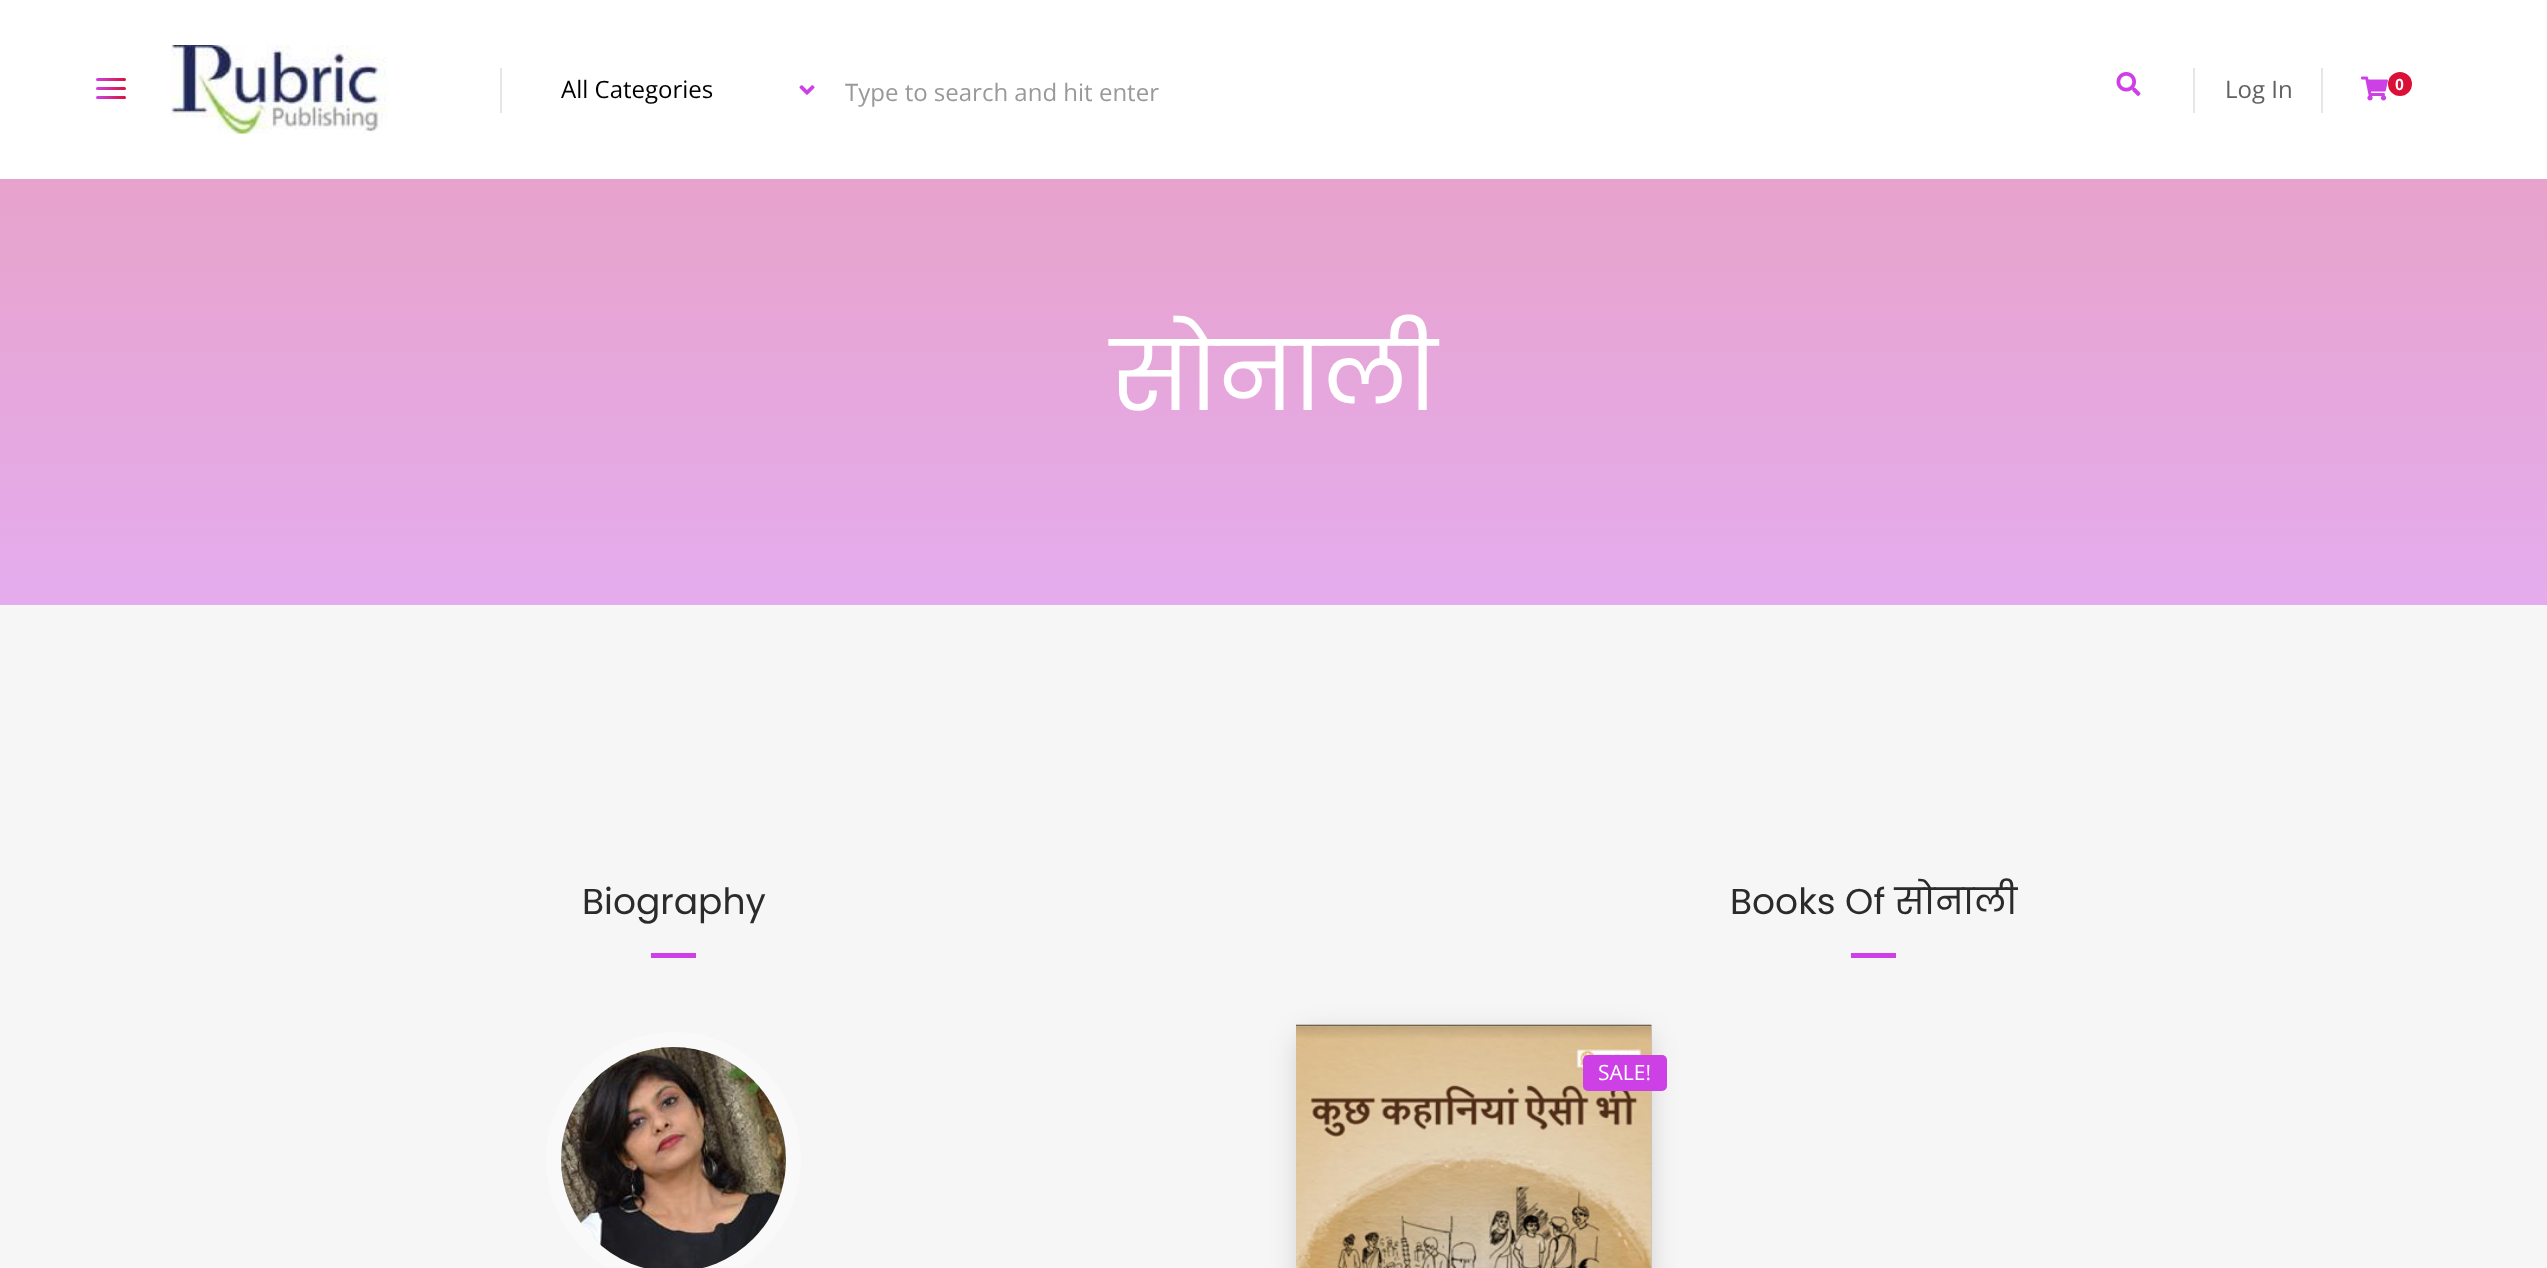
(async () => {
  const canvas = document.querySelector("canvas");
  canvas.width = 2547;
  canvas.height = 1268;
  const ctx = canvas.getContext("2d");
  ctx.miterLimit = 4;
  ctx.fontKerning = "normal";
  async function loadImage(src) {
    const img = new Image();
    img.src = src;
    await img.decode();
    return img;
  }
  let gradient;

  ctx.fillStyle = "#f6f6f6";
  ctx.fillRect(0, 0, 2547, 1268);
  ctx.fillStyle = "#ffffff";
  ctx.fillRect(0, 0, 2547, 179);
  gradient = ctx.createLinearGradient(126, 89, 96, 89);
  gradient.addColorStop(0, "#db1037");
  gradient.addColorStop(1, "#cd40e6");
  ctx.fillStyle = gradient;
  ctx.beginPath();
  ctx.roundRect(96, 87, 30, 3, 1.5);
  ctx.fill();
  gradient = ctx.createLinearGradient(126, 80, 96, 80);
  gradient.addColorStop(0, "#db1037");
  gradient.addColorStop(1, "#cd40e6");
  ctx.fillStyle = gradient;
  ctx.beginPath();
  ctx.roundRect(96, 78, 30, 3, 1.5);
  ctx.fill();
  gradient = ctx.createLinearGradient(126, 98, 96, 98);
  gradient.addColorStop(0, "#db1037");
  gradient.addColorStop(1, "#cd40e6");
  ctx.fillStyle = gradient;
  ctx.beginPath();
  ctx.roundRect(96, 96, 30, 3, 1.5);
  ctx.fill();
  ctx.drawImage(await loadImage("img/1.png"), 171, 45, 217, 89);
  ctx.fillStyle = "#e6e6e6";
  ctx.fillRect(500, 68, 2, 45);
  ctx.drawImage(await loadImage("img/2.png"), 799, 85, 16, 10);
  ctx.drawImage(await loadImage("img/3.png"), 2116, 72, 25, 24);
  ctx.fillRect(2193, 68, 2, 45);
  ctx.fillRect(2321, 68, 2, 45);
  ctx.drawImage(await loadImage("img/4.png"), 2361, 76, 27, 25);
  ctx.fillStyle = "#db1037";
  ctx.beginPath();
  ctx.arc(2400, 84, 12, 0, Math.PI * 2);
  ctx.fill();
  gradient = ctx.createLinearGradient(1274, -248, 1274, 605);
  gradient.addColorStop(0, "#ea99a8");
  gradient.addColorStop(1, "#e4acee");
  ctx.fillStyle = gradient;
  ctx.fillRect(0, 179, 2547, 426);
  ctx.fillStyle = "#cd40e6";
  ctx.fillRect(651, 953, 45, 5);
  ctx.beginPath();
  ctx.arc(673.5, 1159.5, 120, 0, Math.PI * 2);
  ctx.strokeStyle = "#f9f9f9";
  ctx.lineWidth = 15;
  ctx.stroke();
  ctx.fillStyle = "#ffffff";
  ctx.beginPath();
  ctx.arc(673.5, 1159.5, 112.5, 0, Math.PI * 2);
  ctx.fill();
  ctx.drawImage(await loadImage("img/5.png"), 561, 1047, 225, 221);
  ctx.fillStyle = "#cd40e6";
  ctx.fillRect(1851, 953, 45, 5);
  ctx.fillStyle = "rgba(0, 0, 0, 0.2)";
  ctx.filter = "blur(15px)";
  ctx.beginPath();
  ctx.rect(1301, 1037, 346, 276);
  ctx.fill();
  ctx.filter = "none";
  ctx.fillStyle = "#c3c3c3";
  ctx.fillRect(1651, 1025, 1, 243);
  ctx.drawImage(await loadImage("img/6.png"), 1296, 1024, 356, 244);
  ctx.fillStyle = "#cd40e6";
  ctx.beginPath();
  ctx.roundRect(1583, 1055, 84, 36, 5);
  ctx.fill();
  ctx.font = "24px Open Sans";
  ctx.fillStyle = "#000000";
  ctx.fillText("All Categories", 561, 98);
  ctx.fillStyle = "#999999";
  ctx.fillText("Type to search and hit enter", 845, 101);
  ctx.fillStyle = "#616161";
  ctx.fillText("Log In", 2225, 98);
  ctx.font = "bold 16px Liberation Sans";
  ctx.fillStyle = "#ffffff";
  ctx.fillText("0", 2395, 90);
  ctx.font = "96px Poppins";
  ctx.fillText("सोनाली", 1111, 410);
  ctx.font = "36px Poppins";
  ctx.fillStyle = "#2b2b2b";
  ctx.fillText("Biography", 582, 914);
  ctx.fillText("Books Of सोनाली", 1730, 914);
  ctx.font = "21px Open Sans";
  ctx.fillStyle = "#ffffff";
  ctx.fillText("SALE!", 1598, 1080);
})();
